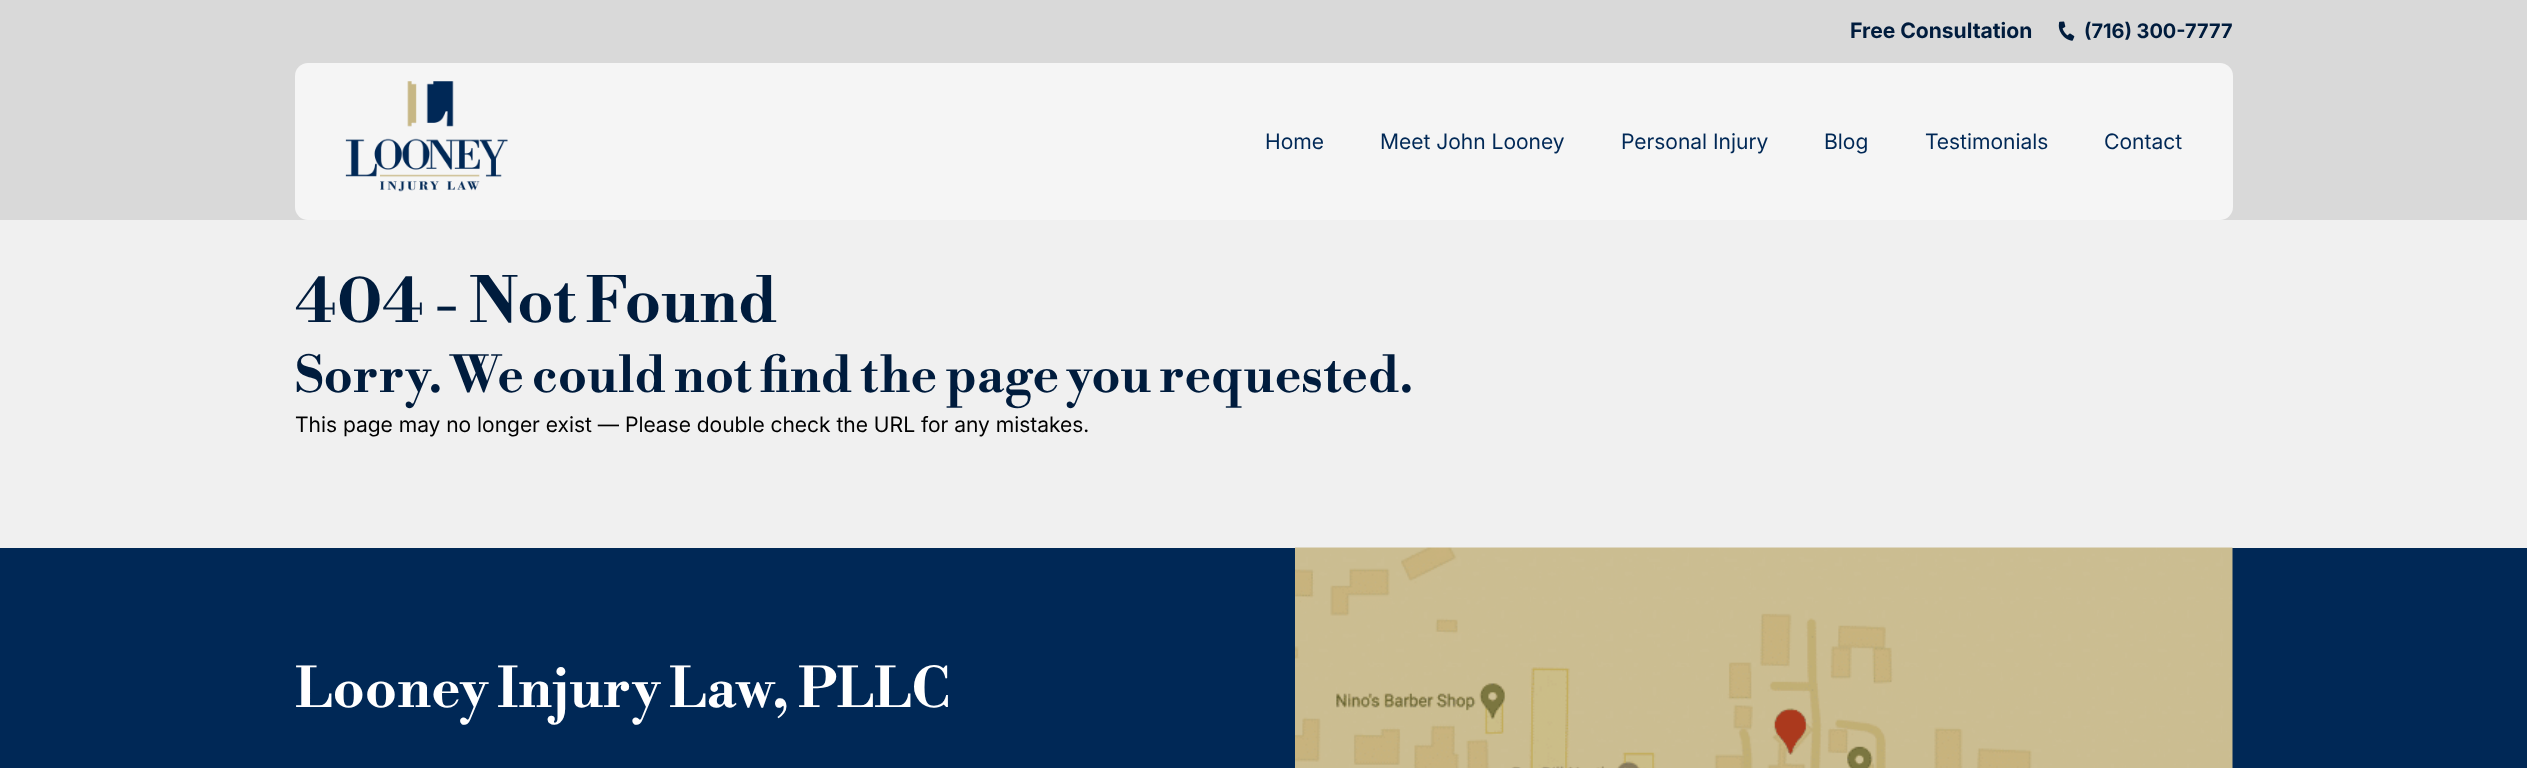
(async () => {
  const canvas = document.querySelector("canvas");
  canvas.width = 2527;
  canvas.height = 768;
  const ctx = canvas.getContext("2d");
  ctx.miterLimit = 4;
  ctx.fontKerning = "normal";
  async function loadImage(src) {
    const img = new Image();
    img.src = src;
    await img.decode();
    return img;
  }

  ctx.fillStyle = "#f0f0f0";
  ctx.fillRect(0, 0, 2527, 768);
  ctx.fillStyle = "#d9d9d9";
  ctx.fillRect(0, 0, 2527, 220);
  ctx.drawImage(await loadImage("img/1.png"), 2058, 21, 17, 20);
  ctx.fillStyle = "#f5f5f5";
  ctx.beginPath();
  ctx.roundRect(295, 63, 1938, 157, 13);
  ctx.fill();
  ctx.drawImage(await loadImage("img/2.png"), 345, 81, 163, 111);
  ctx.fillStyle = "#002856";
  ctx.fillRect(0, 548, 2527, 220);
  ctx.drawImage(await loadImage("img/3.png"), 1295, 547, 938, 221);
  ctx.font = "bold 21.25px Inter";
  ctx.fillStyle = "#001c3d";
  ctx.fillText("Free Consultation", 1850, 38);
  ctx.font = "bold 20px 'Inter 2'";
  ctx.fillText("(716) 300-7777", 2084, 38);
  ctx.font = "21.25px Inter";
  ctx.fillStyle = "#002856";
  for (const [text, x, y] of [
    ["Home", 1265, 149],
    ["Meet John Looney", 1380, 149],
    ["Personal Injury", 1621, 149],
    ["Blog", 1824, 149],
    ["Testimonials", 1925, 149],
    ["Contact", 2104, 149],
  ]) {
    ctx.fillText(text, x, y);
  }
  ctx.font = "bold 62.5px Libre Bodoni";
  ctx.fillStyle = "#001c3d";
  ctx.fillText("404 - Not Found", 295, 322);
  ctx.font = "bold 50px Libre Bodoni";
  ctx.fillText("Sorry. We could not find the page you requested.", 295, 392);
  ctx.font = "21.25px Inter";
  ctx.fillStyle = "#000000";
  ctx.fillText("This page may no longer exist — Please double check the URL for any mistakes.", 295, 432);
  ctx.font = "bold 55px Libre Bodoni";
  ctx.fillStyle = "#ffffff";
  ctx.fillText("Looney Injury Law, PLLC", 295, 707);
})();
